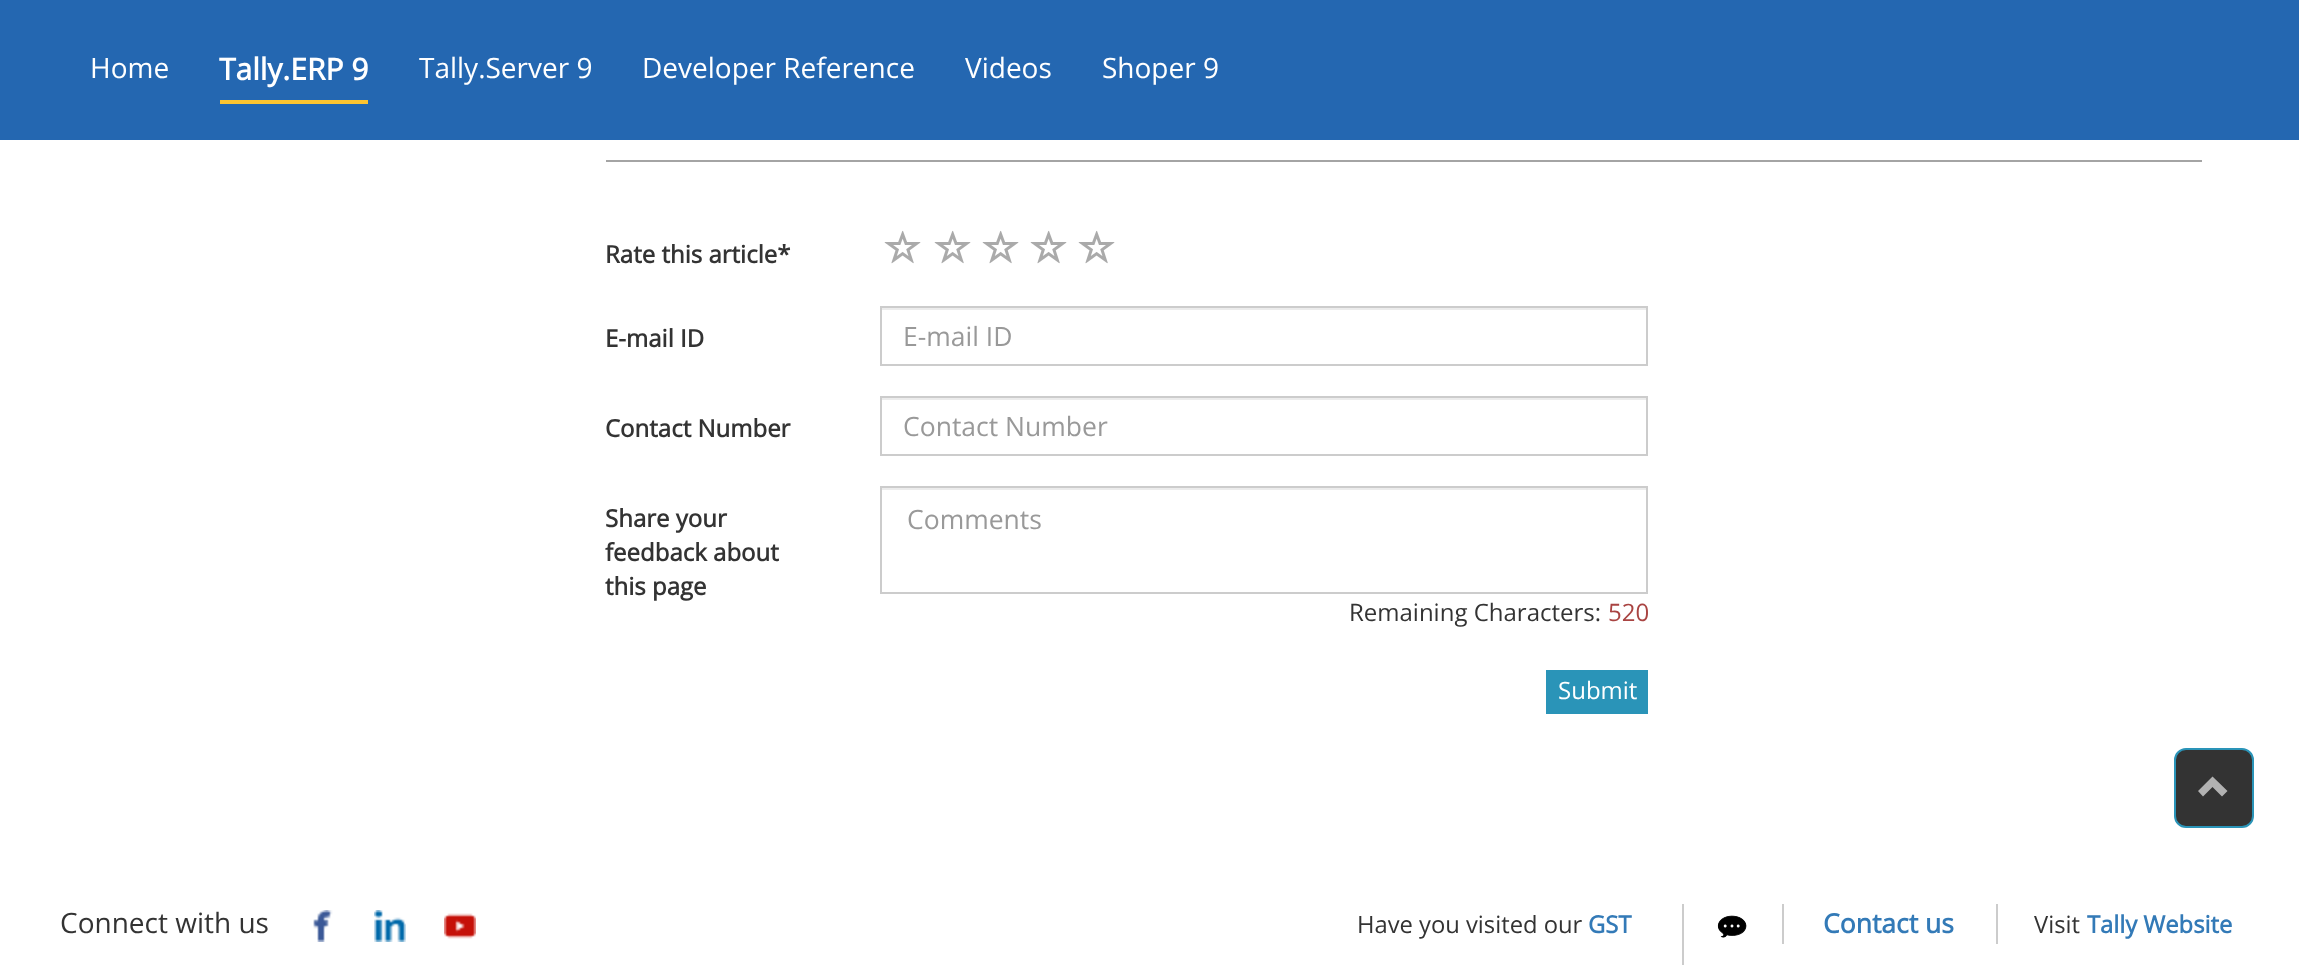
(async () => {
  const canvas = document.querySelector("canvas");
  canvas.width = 2299;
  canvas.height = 965;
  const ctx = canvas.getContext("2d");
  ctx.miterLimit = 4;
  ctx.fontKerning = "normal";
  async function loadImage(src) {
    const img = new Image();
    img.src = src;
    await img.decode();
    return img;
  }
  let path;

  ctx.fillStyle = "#ffffff";
  ctx.fillRect(0, 0, 2299, 965);
  for (const [x, y, w, h, color] of [
    [0, 0, 2299, 140, "#2467b1"],
    [220, 100, 148, 4, "#fdc430"],
    [606, 160, 1596, 2, "#a4a4a4"],
  ]) {
    ctx.fillStyle = color;
    ctx.fillRect(x, y, w, h);
  }
  ctx.drawImage(await loadImage("img/1.png"), 884, 230, 37, 34);
  ctx.drawImage(await loadImage("img/1.png"), 934, 230, 37, 34);
  ctx.drawImage(await loadImage("img/1.png"), 982, 230, 37, 34);
  ctx.drawImage(await loadImage("img/1.png"), 1030, 230, 37, 34);
  ctx.drawImage(await loadImage("img/1.png"), 1078, 230, 37, 34);
  ctx.fillStyle = "#ececec";
  ctx.fillRect(882, 308, 764, 2);
  ctx.strokeStyle = "#cccccc";
  ctx.lineWidth = 2;
  ctx.strokeRect(881, 307, 766, 58);
  ctx.fillRect(882, 398, 764, 2);
  ctx.strokeRect(881, 397, 766, 58);
  ctx.fillRect(882, 488, 764, 2);
  ctx.strokeRect(881, 487, 766, 106);
  ctx.fillStyle = "#2a94b8";
  ctx.fillRect(1546, 670, 102, 44);
  ctx.fillStyle = "#333333";
  ctx.beginPath();
  ctx.roundRect(2175, 749, 78, 78, 11);
  ctx.fill();
  ctx.strokeStyle = "#2a94b8";
  ctx.stroke();
  ctx.fillStyle = "#b2b2b2";
  path = new Path2D("M2227.5 791L2222 796.5L2212.5 787L2203 796.5L2198 791L2212.5 776.5Z");
  ctx.fill(path);
  ctx.drawImage(await loadImage("img/2.png"), 313, 910, 20, 32);
  ctx.drawImage(await loadImage("img/3.png"), 374, 910, 32, 32);
  ctx.drawImage(await loadImage("img/4.png"), 444, 913, 32, 26);
  ctx.fillStyle = "#cccccc";
  ctx.fillRect(1682, 904, 2, 61);
  ctx.fillRect(1782, 904, 2, 40);
  ctx.drawImage(await loadImage("img/5.png"), 1717, 915, 30, 23);
  ctx.fillRect(1996, 904, 2, 40);
  ctx.font = "28px Open Sans";
  ctx.fillStyle = "#ffffff";
  ctx.fillText("Home", 90, 78);
  ctx.font = "bold 30px Open Sans";
  ctx.fillText("Tally.ERP 9", 219, 80);
  ctx.font = "28px Open Sans";
  for (const [text, x, y] of [
    ["Tally.Server 9", 419, 78],
    ["Developer Reference", 642, 78],
    ["Videos", 965, 78],
    ["Shoper 9", 1102, 78],
  ]) {
    ctx.fillText(text, x, y);
  }
  ctx.font = "bold 24px Open Sans";
  ctx.fillStyle = "#333333";
  ctx.fillText("Rate this article*", 605, 263);
  ctx.fillText("E-mail ID", 605, 347);
  ctx.font = "26.5px Open Sans";
  ctx.fillStyle = "#999999";
  ctx.fillText("E-mail ID", 903, 346);
  ctx.font = "bold 24px Open Sans";
  ctx.fillStyle = "#333333";
  ctx.fillText("Contact Number", 605, 437);
  ctx.font = "26.5px Open Sans";
  ctx.fillStyle = "#999999";
  ctx.fillText("Contact Number", 903, 436);
  ctx.font = "bold 24px Open Sans";
  ctx.fillStyle = "#333333";
  for (const [text, x, y] of [
    ["Share your", 605, 527],
    ["feedback about", 605, 561],
    ["this page", 605, 595],
  ]) {
    ctx.fillText(text, x, y);
  }
  ctx.font = "26.5px Open Sans";
  ctx.fillStyle = "#999999";
  ctx.fillText("Comments", 907, 529);
  ctx.font = "24px Open Sans";
  ctx.fillStyle = "#333333";
  ctx.fillText("Remaining Characters:", 1349, 621);
  ctx.fillStyle = "#a94442";
  ctx.fillText("520", 1608, 621);
  ctx.fillStyle = "#ffffff";
  ctx.fillText("Submit", 1558, 699);
  ctx.font = "28px Open Sans";
  ctx.fillStyle = "#333333";
  ctx.fillText("Connect with us", 60, 933);
  ctx.font = "23.75px Open Sans";
  ctx.fillText("Have you visited our", 1357, 933);
  ctx.font = "bold 23.75px Open Sans";
  ctx.fillStyle = "#337ab7";
  ctx.fillText("GST", 1588, 933);
  ctx.font = "bold 26.5px Open Sans";
  ctx.fillText("Contact us", 1823, 933);
  ctx.font = "23.75px Open Sans";
  ctx.fillStyle = "#333333";
  ctx.fillText("Visit", 2034, 933);
  ctx.font = "bold 23.75px Open Sans";
  ctx.fillStyle = "#337ab7";
  ctx.fillText("Tally Website", 2087, 933);
})();
